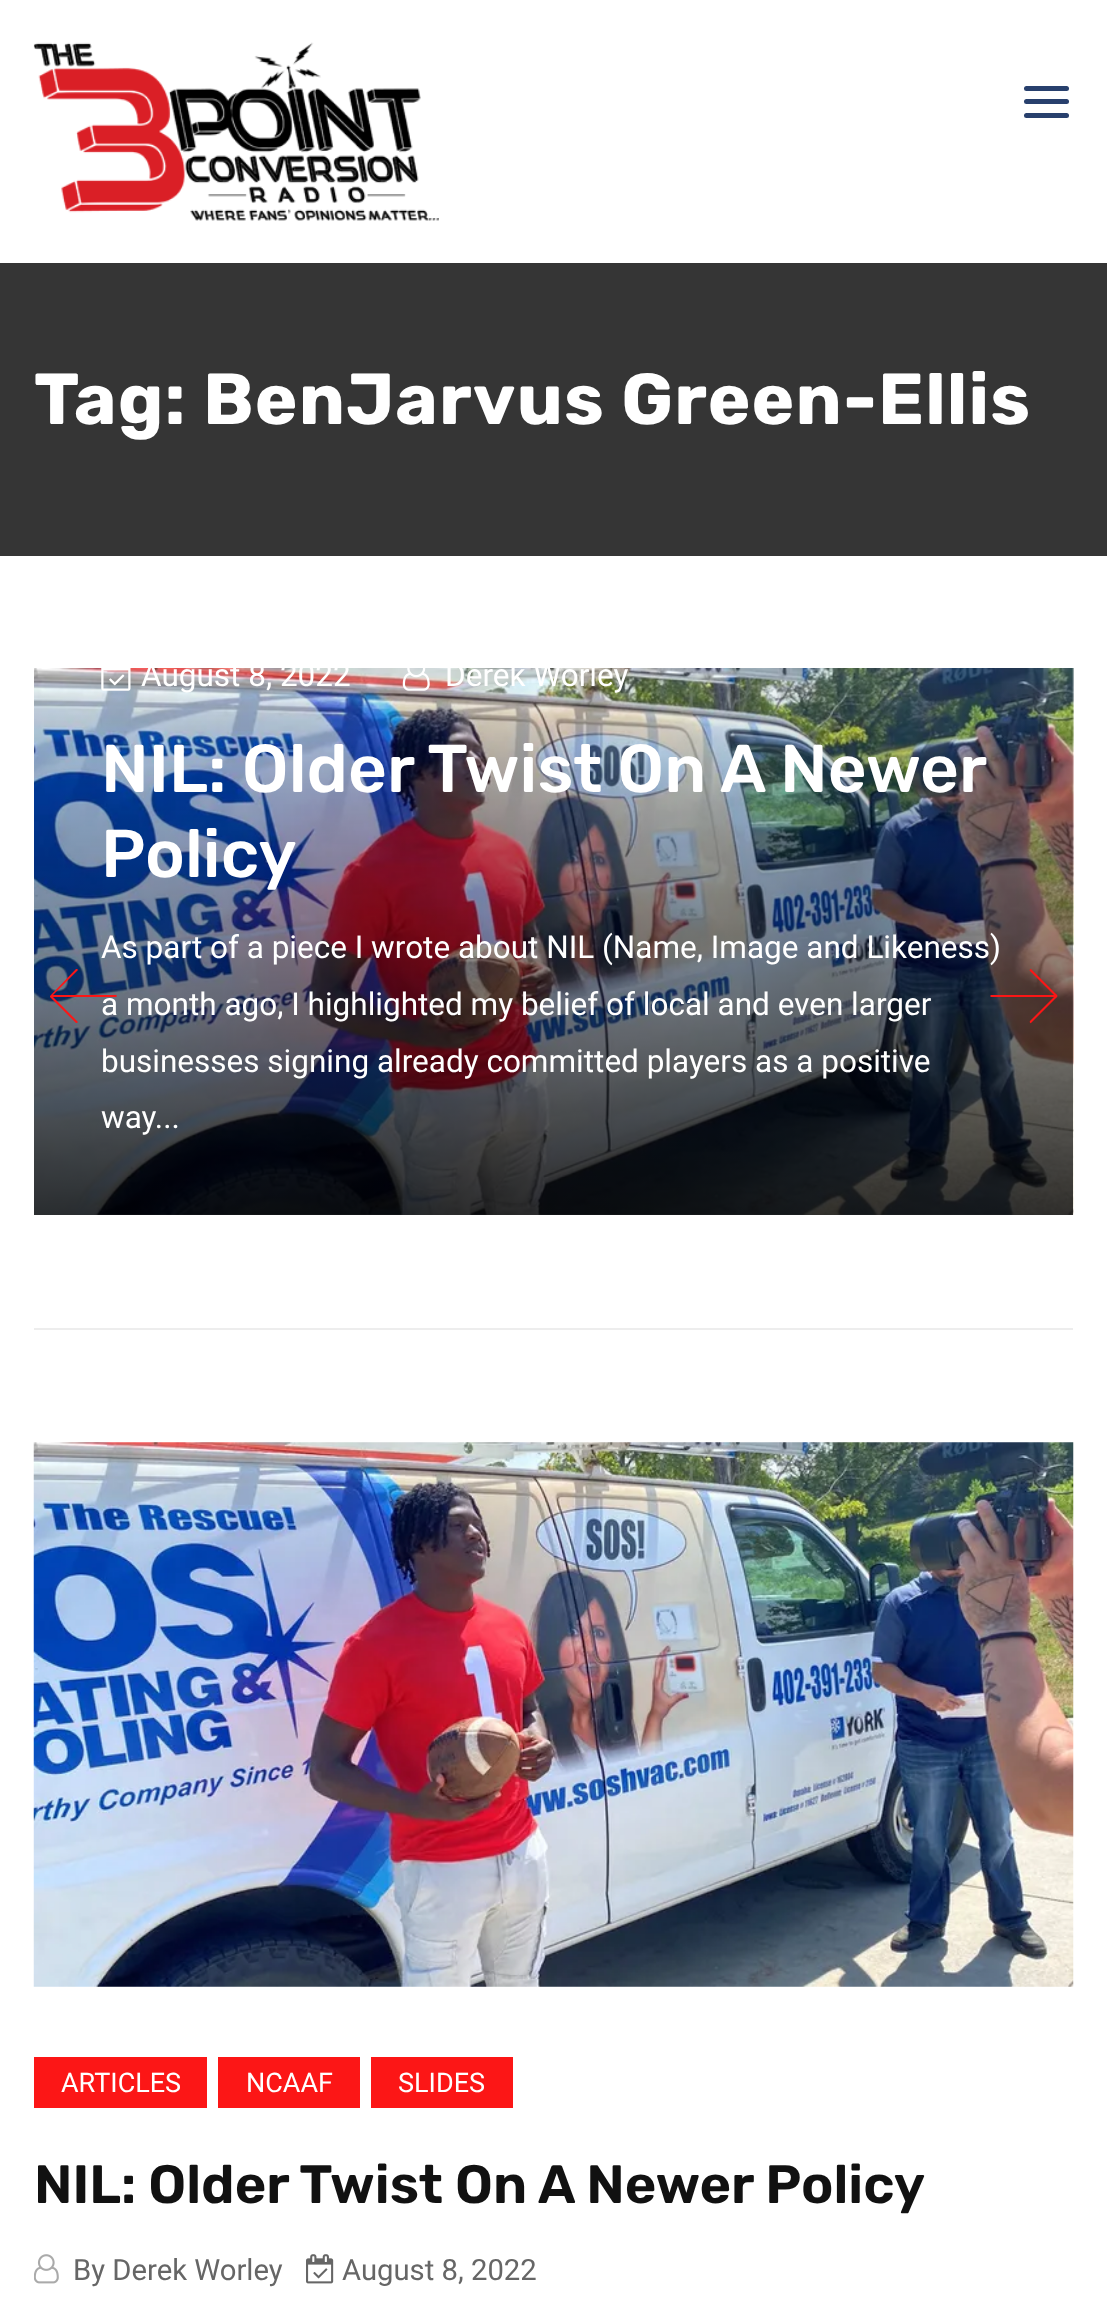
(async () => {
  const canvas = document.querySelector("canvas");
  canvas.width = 1107;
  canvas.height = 2321;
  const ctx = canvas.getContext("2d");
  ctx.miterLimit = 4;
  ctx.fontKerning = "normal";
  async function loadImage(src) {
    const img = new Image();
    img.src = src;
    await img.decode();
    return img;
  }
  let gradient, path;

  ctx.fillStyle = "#ffffff";
  ctx.fillRect(0, 0, 1107, 2321);
  ctx.drawImage(await loadImage("img/1.png"), 33, 42, 406, 179);
  ctx.fillStyle = "#28406d";
  ctx.beginPath();
  ctx.roundRect(1024, 86, 45, 5, 2.5);
  ctx.fill();
  ctx.beginPath();
  ctx.roundRect(1024, 99, 45, 5, 2.5);
  ctx.fill();
  ctx.beginPath();
  ctx.roundRect(1024, 113, 45, 5, 2.5);
  ctx.fill();
  ctx.fillStyle = "#353535";
  ctx.fillRect(0, 263, 1107, 293);
  ctx.fillStyle = "#ededed";
  ctx.fillRect(34, 1328, 1039, 2);
  ctx.drawImage(await loadImage("img/2.png"), 34, 668, 1040, 547);
  gradient = ctx.createLinearGradient(554, 668, 554, 1215);
  gradient.addColorStop(0, "rgba(0, 0, 0, 0)");
  gradient.addColorStop(1, "rgba(0, 0, 0, 0.8)");
  ctx.fillStyle = gradient;
  ctx.fillRect(34, 683, 1039, 532);
  ctx.drawImage(await loadImage("img/3.png"), 101, 668, 30, 23);
  ctx.drawImage(await loadImage("img/4.png"), 402, 668, 28, 23);
  ctx.fillStyle = "#fc1616";
  path = new Path2D("M1056 997H991L990 996L991 995H1056C1058 995 1058 997 1056 997ZM1031 1023C1031 1024 1029 1022 1030 1021L1055 996L1030 971C1029 970 1030 969 1031 969L1053 991C1059 997 1059 995 1053 1001Z");
  ctx.fill(path);
  ctx.drawImage(await loadImage("img/5.png"), 33, 1442, 1041, 545);
  for (const [x, y, w, h, color] of [
    [34, 2057, 173, 51, "#fc1616"],
    [218, 2057, 142, 51, "#fc1616"],
    [371, 2057, 142, 51, "#fc1616"],
  ]) {
    ctx.fillStyle = color;
    ctx.fillRect(x, y, w, h);
  }
  ctx.drawImage(await loadImage("img/6.png"), 34, 2254, 25, 30);
  ctx.drawImage(await loadImage("img/7.png"), 306, 2254, 28, 30);
  ctx.letterSpacing = "1.1px";
  ctx.font = "bold 72px Rubik";
  ctx.fillStyle = "#ffffff";
  ctx.fillText("Tag: BenJarvus Green-Ellis", 34, 424);
  ctx.save();
  ctx.beginPath();
  ctx.rect(34, 668, 1039, 660);
  ctx.clip();
  ctx.letterSpacing = "0px";
  ctx.font = "31.5px Roboto";
  ctx.fillText("August 8, 2022", 141, 686);
  ctx.fillText("Derek Worley", 445, 686);
  ctx.restore();
  ctx.letterSpacing = "0px";
  ctx.wordSpacing = "-0.25px";
  ctx.font = "500 67.5px Rubik";
  ctx.fillText("NIL: Older Twist On A Newer", 101, 792);
  ctx.wordSpacing = "0px";
  ctx.fillText("Policy", 101, 877);
  ctx.font = "31.5px Roboto";
  for (const [text, x, y] of [
    ["As part of a piece I wrote about NIL (Name, Image and Likeness)", 101, 958],
    ["a month ago, I highlighted my belief of local and even larger", 101, 1015],
    ["businesses signing already committed players as a positive", 101, 1072],
    ["way...", 101, 1128],
  ]) {
    ctx.fillText(text, x, y);
  }
  ctx.fillStyle = "#fc1616";
  path = new Path2D("M116 997H50V996L51 995H116C117 995 117 997 116 997ZM77 1023H76L50 997V996L76 969C77 969 78 969 78 970L52 996L77 1021C78 1022 78 1022 77 1023Z");
  ctx.fill(path);
  ctx.font = "27px Roboto";
  ctx.fillStyle = "#ffffff";
  for (const [text, x, y] of [
    ["ARTICLES", 61, 2092],
    ["NCAAF", 246, 2092],
    ["SLIDES", 398, 2092],
  ]) {
    ctx.fillText(text, x, y);
  }
  ctx.font = "600 54px Rubik";
  ctx.fillStyle = "#111111";
  ctx.fillText("NIL: Older Twist On A Newer Policy", 34, 2203);
  ctx.font = "29.25px Roboto";
  ctx.fillStyle = "#666666";
  ctx.fillText("By Derek Worley", 73, 2280);
  ctx.fillText("August 8, 2022", 342, 2280);
})();
